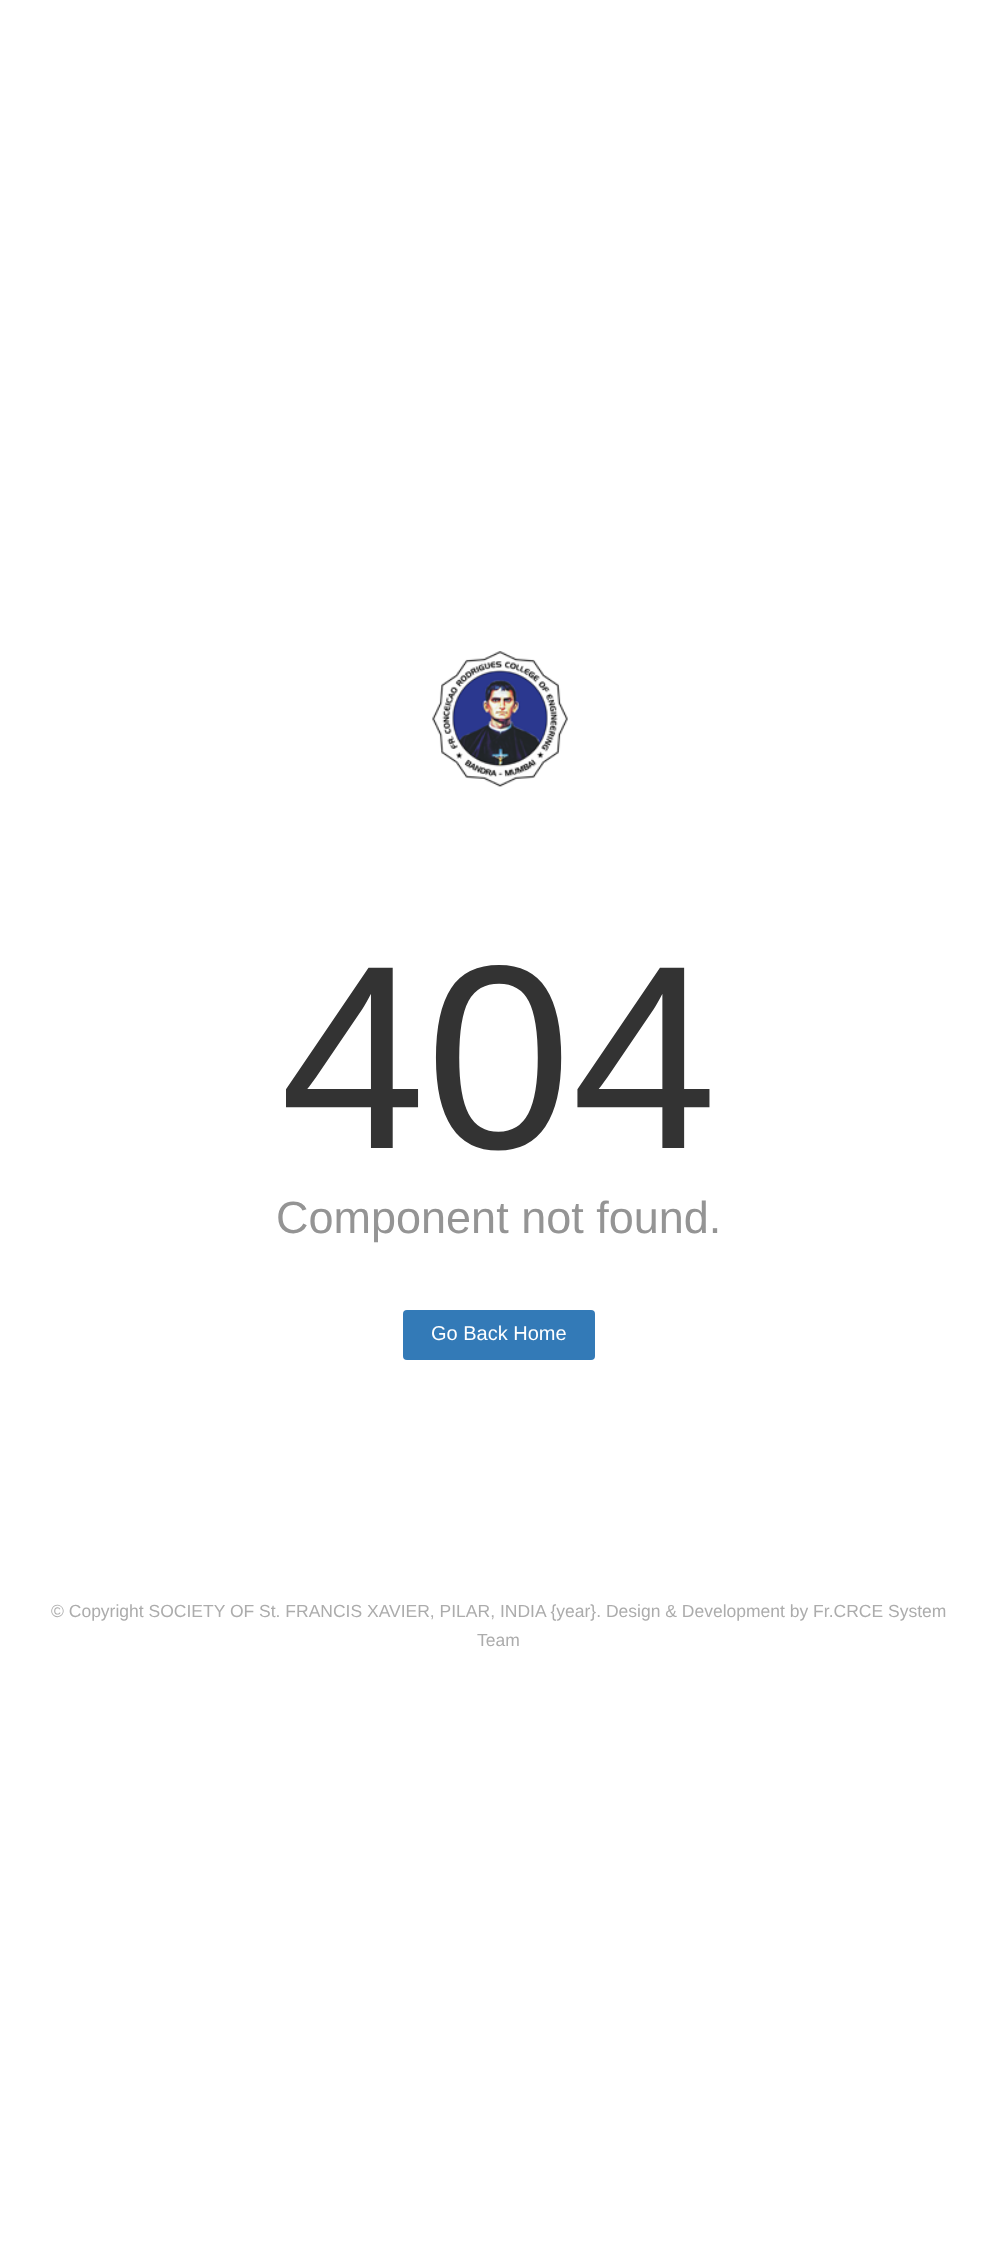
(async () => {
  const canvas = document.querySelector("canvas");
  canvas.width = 997;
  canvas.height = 2268;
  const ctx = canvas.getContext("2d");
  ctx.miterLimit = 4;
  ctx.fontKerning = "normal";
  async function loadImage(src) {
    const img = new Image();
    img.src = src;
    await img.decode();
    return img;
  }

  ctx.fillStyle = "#ffffff";
  ctx.fillRect(0, 0, 997, 2268);
  ctx.drawImage(await loadImage("img/1.png"), 432, 651, 136, 136);
  ctx.fillStyle = "#337ab7";
  ctx.beginPath();
  ctx.roundRect(403, 1310, 192, 50, 4);
  ctx.fill();
  ctx.font = "262px Liberation Sans";
  ctx.fillStyle = "#333333";
  ctx.fillText("404", 280, 1148);
  ctx.font = "45px Liberation Sans";
  ctx.fillStyle = "#949494";
  ctx.fillText("Component not found.", 276, 1233);
  ctx.font = "20px Liberation Sans";
  ctx.fillStyle = "#ffffff";
  ctx.fillText("Go Back Home", 431, 1340);
  ctx.font = "17.5px Liberation Sans";
  ctx.fillStyle = "#acacac";
  ctx.fillText("© Copyright SOCIETY OF St. FRANCIS XAVIER, PILAR, INDIA {year}. Design & Development by Fr.CRCE System", 51, 1617);
  ctx.fillText("Team", 477, 1646);
})();
